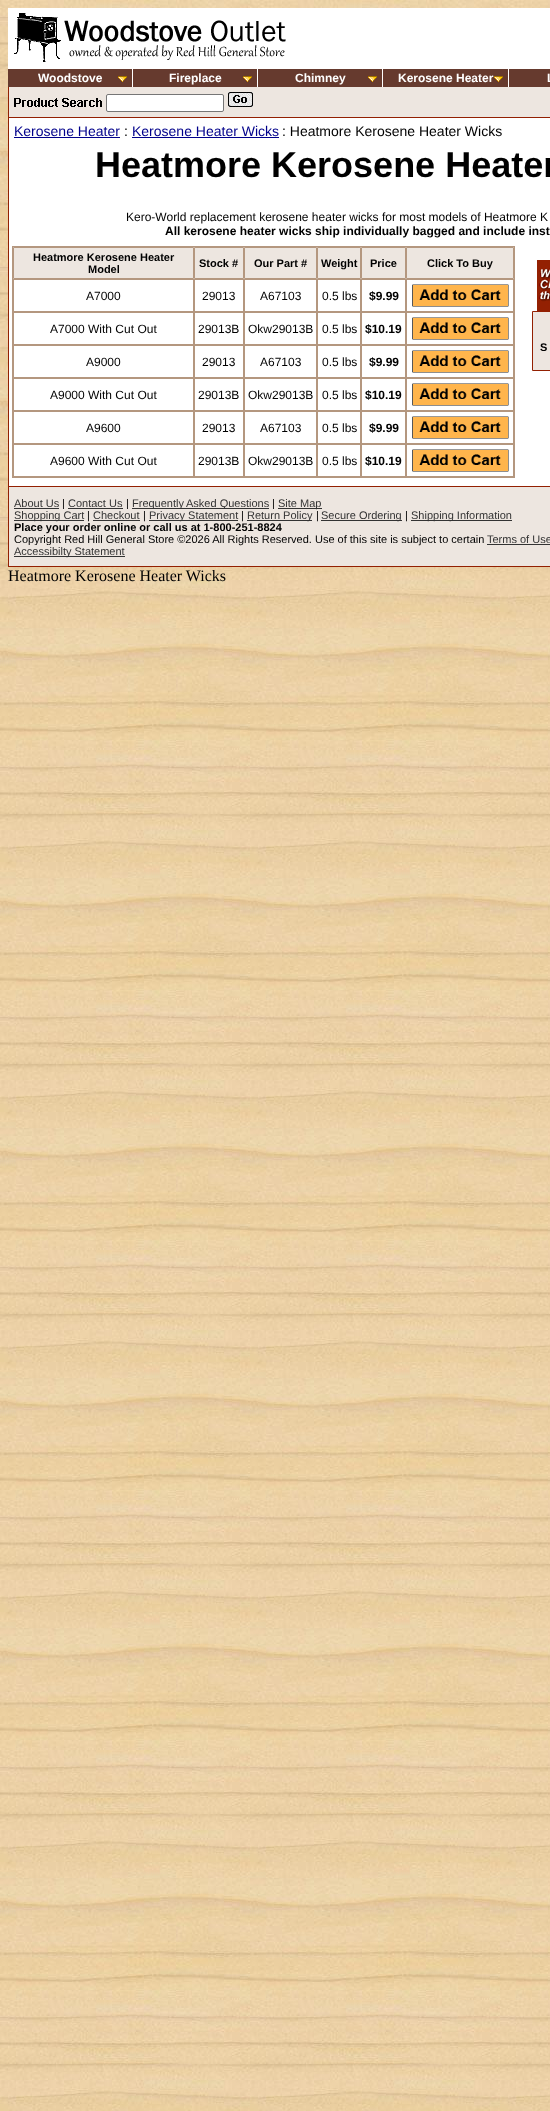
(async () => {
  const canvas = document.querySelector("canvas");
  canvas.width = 550;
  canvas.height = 2111;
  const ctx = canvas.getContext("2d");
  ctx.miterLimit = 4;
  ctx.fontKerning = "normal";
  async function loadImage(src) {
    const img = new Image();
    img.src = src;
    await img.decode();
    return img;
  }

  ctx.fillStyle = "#ffffff";
  ctx.fillRect(0, 0, 550, 2111);
  ctx.drawImage(await loadImage("img/1.png"), 0, 0, 550, 2111);
  ctx.fillRect(8, 8, 542, 59);
  ctx.drawImage(await loadImage("img/2.png"), 14, 13, 272, 49);
  for (const [x, y, w, h, color] of [
    [8, 69, 542, 18, "#663a2e"],
    [8, 67, 542, 2, "#ffffff"],
    [132, 67, 1, 20, "#ffffff"],
  ]) {
    ctx.fillStyle = color;
    ctx.fillRect(x, y, w, h);
  }
  ctx.drawImage(await loadImage("img/3.png"), 118, 76, 9, 6);
  ctx.fillRect(257, 67, 1, 20);
  ctx.drawImage(await loadImage("img/3.png"), 243, 76, 9, 6);
  ctx.fillRect(382, 67, 1, 20);
  ctx.drawImage(await loadImage("img/3.png"), 368, 76, 9, 6);
  ctx.fillRect(508, 67, 1, 20);
  ctx.drawImage(await loadImage("img/3.png"), 494, 76, 9, 6);
  for (const [x, y, w, h, color] of [
    [9, 118, 541, 368, "#ffffff"],
    [8, 87, 1, 480, "#932002"],
    [9, 87, 541, 30, "#ede6e0"],
    [9, 117, 541, 1, "#932002"],
  ]) {
    ctx.fillStyle = color;
    ctx.fillRect(x, y, w, h);
  }
  ctx.drawImage(await loadImage("img/4.png"), 14, 98, 88, 9);
  ctx.fillStyle = "#ffffff";
  ctx.beginPath();
  ctx.roundRect(106.5, 94.5, 117, 17, 1.5);
  ctx.fill();
  ctx.strokeStyle = "#767676";
  ctx.stroke();
  ctx.drawImage(await loadImage("img/5.png"), 228, 92, 25, 15);
  ctx.fillStyle = "#00008b";
  ctx.fillRect(14, 137, 106, 1);
  ctx.fillRect(132, 137, 147, 1);
  ctx.strokeStyle = "#b4977f";
  ctx.strokeRect(12.5, 246.5, 502, 231);
  ctx.fillStyle = "#ede6e0";
  ctx.beginPath();
  ctx.rect(13.5, 247.5, 180, 31);
  ctx.fill();
  ctx.stroke();
  ctx.beginPath();
  ctx.rect(194.5, 247.5, 49, 31);
  ctx.fill();
  ctx.stroke();
  ctx.beginPath();
  ctx.rect(244.5, 247.5, 72, 31);
  ctx.fill();
  ctx.stroke();
  ctx.beginPath();
  ctx.rect(317.5, 247.5, 43, 31);
  ctx.fill();
  ctx.stroke();
  ctx.beginPath();
  ctx.rect(361.5, 247.5, 44, 31);
  ctx.fill();
  ctx.stroke();
  ctx.beginPath();
  ctx.rect(406.5, 247.5, 107, 31);
  ctx.fill();
  ctx.stroke();
  ctx.strokeRect(13.5, 279.5, 180, 32);
  ctx.strokeRect(194.5, 279.5, 49, 32);
  ctx.strokeRect(244.5, 279.5, 72, 32);
  ctx.strokeRect(317.5, 279.5, 43, 32);
  ctx.strokeRect(361.5, 279.5, 44, 32);
  ctx.strokeRect(406.5, 279.5, 107, 32);
  ctx.drawImage(await loadImage("img/6.png"), 412, 284, 97, 23);
  ctx.strokeRect(13.5, 312.5, 180, 32);
  ctx.strokeRect(194.5, 312.5, 49, 32);
  ctx.strokeRect(244.5, 312.5, 72, 32);
  ctx.strokeRect(317.5, 312.5, 43, 32);
  ctx.strokeRect(361.5, 312.5, 44, 32);
  ctx.strokeRect(406.5, 312.5, 107, 32);
  ctx.drawImage(await loadImage("img/6.png"), 412, 317, 97, 23);
  ctx.strokeRect(13.5, 345.5, 180, 32);
  ctx.strokeRect(194.5, 345.5, 49, 32);
  ctx.strokeRect(244.5, 345.5, 72, 32);
  ctx.strokeRect(317.5, 345.5, 43, 32);
  ctx.strokeRect(361.5, 345.5, 44, 32);
  ctx.strokeRect(406.5, 345.5, 107, 32);
  ctx.drawImage(await loadImage("img/6.png"), 412, 350, 97, 23);
  ctx.strokeRect(13.5, 378.5, 180, 32);
  ctx.strokeRect(194.5, 378.5, 49, 32);
  ctx.strokeRect(244.5, 378.5, 72, 32);
  ctx.strokeRect(317.5, 378.5, 43, 32);
  ctx.strokeRect(361.5, 378.5, 44, 32);
  ctx.strokeRect(406.5, 378.5, 107, 32);
  ctx.drawImage(await loadImage("img/6.png"), 412, 383, 97, 23);
  ctx.strokeRect(13.5, 411.5, 180, 32);
  ctx.strokeRect(194.5, 411.5, 49, 32);
  ctx.strokeRect(244.5, 411.5, 72, 32);
  ctx.strokeRect(317.5, 411.5, 43, 32);
  ctx.strokeRect(361.5, 411.5, 44, 32);
  ctx.strokeRect(406.5, 411.5, 107, 32);
  ctx.drawImage(await loadImage("img/6.png"), 412, 416, 97, 23);
  ctx.strokeRect(13.5, 444.5, 180, 32);
  ctx.strokeRect(194.5, 444.5, 49, 32);
  ctx.strokeRect(244.5, 444.5, 72, 32);
  ctx.strokeRect(317.5, 444.5, 43, 32);
  ctx.strokeRect(361.5, 444.5, 44, 32);
  ctx.strokeRect(406.5, 444.5, 107, 32);
  ctx.drawImage(await loadImage("img/6.png"), 412, 449, 97, 23);
  ctx.drawImage(await loadImage("img/7.png"), 537, 260, 13, 51);
  ctx.beginPath();
  ctx.rect(532.5, 311.5, 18, 59);
  ctx.fill();
  ctx.strokeStyle = "#932002";
  ctx.stroke();
  for (const [x, y, w, h, color] of [
    [9, 487, 541, 79, "#ede6e0"],
    [9, 486, 541, 1, "#932002"],
    [9, 566, 541, 1, "#932002"],
    [14, 508, 45, 1, "#333333"],
    [68, 508, 55, 1, "#333333"],
    [132, 508, 137, 1, "#333333"],
    [278, 508, 44, 1, "#333333"],
    [14, 520, 70, 1, "#333333"],
    [93, 520, 47, 1, "#333333"],
    [149, 520, 89, 1, "#333333"],
    [247, 520, 65, 1, "#333333"],
    [321, 520, 81, 1, "#333333"],
    [411, 520, 101, 1, "#333333"],
    [487, 544, 63, 1, "#333333"],
    [14, 556, 111, 1, "#333333"],
  ]) {
    ctx.fillStyle = color;
    ctx.fillRect(x, y, w, h);
  }
  ctx.font = "bold 12px Liberation Sans";
  ctx.fillStyle = "#ffffff";
  for (const [text, x, y] of [
    ["Woodstove", 38, 82],
    ["Fireplace", 169, 82],
    ["Chimney", 295, 82],
    ["Kerosene Heater", 398, 82],
    ["L", 547, 82],
  ]) {
    ctx.fillText(text, x, y);
  }
  ctx.font = "14px Liberation Sans";
  ctx.fillStyle = "#00008b";
  ctx.fillText("Kerosene Heater", 14, 136);
  ctx.fillStyle = "#000000";
  ctx.fillText(":", 124, 136);
  ctx.fillStyle = "#00008b";
  ctx.fillText("Kerosene Heater Wicks", 132, 136);
  ctx.fillStyle = "#000000";
  ctx.fillText(": Heatmore Kerosene Heater Wicks", 282, 136);
  ctx.font = "bold 36px Liberation Sans";
  ctx.fillText("Heatmore Kerosene Heater", 95, 177);
  ctx.font = "12px Liberation Sans";
  ctx.fillText("Kero-World replacement kerosene heater wicks for most models of Heatmore K", 126, 221);
  ctx.font = "bold 12px Liberation Sans";
  ctx.fillText("All kerosene heater wicks ship individually bagged and include inst", 165, 235);
  ctx.font = "bold 11px Liberation Sans";
  for (const [text, x, y] of [
    ["Heatmore Kerosene Heater", 33, 261],
    ["Model", 88, 273],
    ["Stock #", 199, 267],
    ["Our Part #", 254, 267],
    ["Weight", 321, 267],
    ["Price", 370, 267],
    ["Click To Buy", 427, 267],
  ]) {
    ctx.fillText(text, x, y);
  }
  ctx.font = "12px Liberation Sans";
  for (const [text, x, y] of [
    ["A7000", 86, 300],
    ["29013", 202, 300],
    ["A67103", 260, 300],
    ["0.5 lbs", 322, 300],
  ]) {
    ctx.fillText(text, x, y);
  }
  ctx.font = "bold 12px Liberation Sans";
  ctx.fillText("$9.99", 369, 300);
  ctx.font = "12px Liberation Sans";
  for (const [text, x, y] of [
    ["A7000 With Cut Out", 50, 333],
    ["29013B", 198, 333],
    ["Okw29013B", 248, 333],
    ["0.5 lbs", 322, 333],
  ]) {
    ctx.fillText(text, x, y);
  }
  ctx.font = "bold 12px Liberation Sans";
  ctx.fillText("$10.19", 365, 333);
  ctx.font = "12px Liberation Sans";
  for (const [text, x, y] of [
    ["A9000", 86, 366],
    ["29013", 202, 366],
    ["A67103", 260, 366],
    ["0.5 lbs", 322, 366],
  ]) {
    ctx.fillText(text, x, y);
  }
  ctx.font = "bold 12px Liberation Sans";
  ctx.fillText("$9.99", 369, 366);
  ctx.font = "12px Liberation Sans";
  for (const [text, x, y] of [
    ["A9000 With Cut Out", 50, 399],
    ["29013B", 198, 399],
    ["Okw29013B", 248, 399],
    ["0.5 lbs", 322, 399],
  ]) {
    ctx.fillText(text, x, y);
  }
  ctx.font = "bold 12px Liberation Sans";
  ctx.fillText("$10.19", 365, 399);
  ctx.font = "12px Liberation Sans";
  for (const [text, x, y] of [
    ["A9600", 86, 432],
    ["29013", 202, 432],
    ["A67103", 260, 432],
    ["0.5 lbs", 322, 432],
  ]) {
    ctx.fillText(text, x, y);
  }
  ctx.font = "bold 12px Liberation Sans";
  ctx.fillText("$9.99", 369, 432);
  ctx.font = "12px Liberation Sans";
  for (const [text, x, y] of [
    ["A9600 With Cut Out", 50, 465],
    ["29013B", 198, 465],
    ["Okw29013B", 248, 465],
    ["0.5 lbs", 322, 465],
  ]) {
    ctx.fillText(text, x, y);
  }
  ctx.font = "bold 12px Liberation Sans";
  ctx.fillText("$10.19", 365, 465);
  ctx.font = "bold 11px Liberation Sans";
  ctx.fillText("S", 540, 351);
  ctx.font = "11px Liberation Sans";
  ctx.fillStyle = "#333333";
  ctx.fillText("About Us", 14, 507);
  ctx.fillStyle = "#000000";
  ctx.fillText("|", 62, 507);
  ctx.fillStyle = "#333333";
  ctx.fillText("Contact Us", 68, 507);
  ctx.fillStyle = "#000000";
  ctx.fillText("|", 126, 507);
  ctx.fillStyle = "#333333";
  ctx.fillText("Frequently", 132, 507);
  ctx.fillText("Asked Questions", 186, 507);
  ctx.fillStyle = "#000000";
  ctx.fillText("|", 272, 507);
  ctx.fillStyle = "#333333";
  ctx.fillText("Site Map", 278, 507);
  ctx.fillText("Shopping Cart", 14, 519);
  ctx.fillStyle = "#ede6e0";
  ctx.fillRect(63, 509, 2, 1);
  ctx.fillStyle = "#000000";
  ctx.fillText("|", 87, 519);
  ctx.fillStyle = "#333333";
  ctx.fillText("Checkout", 93, 519);
  ctx.fillStyle = "#ede6e0";
  ctx.fillRect(126, 509, 2, 1);
  ctx.fillStyle = "#000000";
  ctx.fillText("|", 143, 519);
  ctx.fillStyle = "#333333";
  ctx.fillText("Privacy Statement", 149, 519);
  ctx.fillStyle = "#ede6e0";
  ctx.fillRect(152, 509, 74, 1);
  ctx.fillStyle = "#000000";
  ctx.fillText("|", 241, 519);
  ctx.fillStyle = "#333333";
  ctx.fillText("Return Policy", 247, 519);
  ctx.fillStyle = "#ede6e0";
  ctx.fillRect(273, 509, 2, 1);
  ctx.fillStyle = "#000000";
  ctx.fillText("|", 316, 519);
  ctx.fillStyle = "#333333";
  ctx.fillText("Secure Ordering", 321, 519);
  ctx.fillStyle = "#000000";
  ctx.fillText("|", 405, 519);
  ctx.fillStyle = "#333333";
  ctx.fillText("Shipping Information", 411, 519);
  ctx.font = "bold 11px Liberation Sans";
  ctx.fillStyle = "#000000";
  ctx.fillText("Place your order online or call us at 1-800-251-8824", 14, 531);
  ctx.font = "11px Liberation Sans";
  ctx.fillText("Copyright Red Hill General Store ©2026 All Rights Reserved. Use of this site is subject to certain", 14, 543);
  ctx.fillStyle = "#333333";
  ctx.fillText("Terms of Use", 487, 543);
  ctx.fillText("Accessibilty Statement", 14, 555);
  ctx.fillStyle = "#ede6e0";
  ctx.fillRect(28, 545, 22, 1);
  ctx.font = "16px Liberation Serif";
  ctx.fillStyle = "#000000";
  ctx.fillText("Heatmore Kerosene Heater Wicks", 8, 581);
})();
